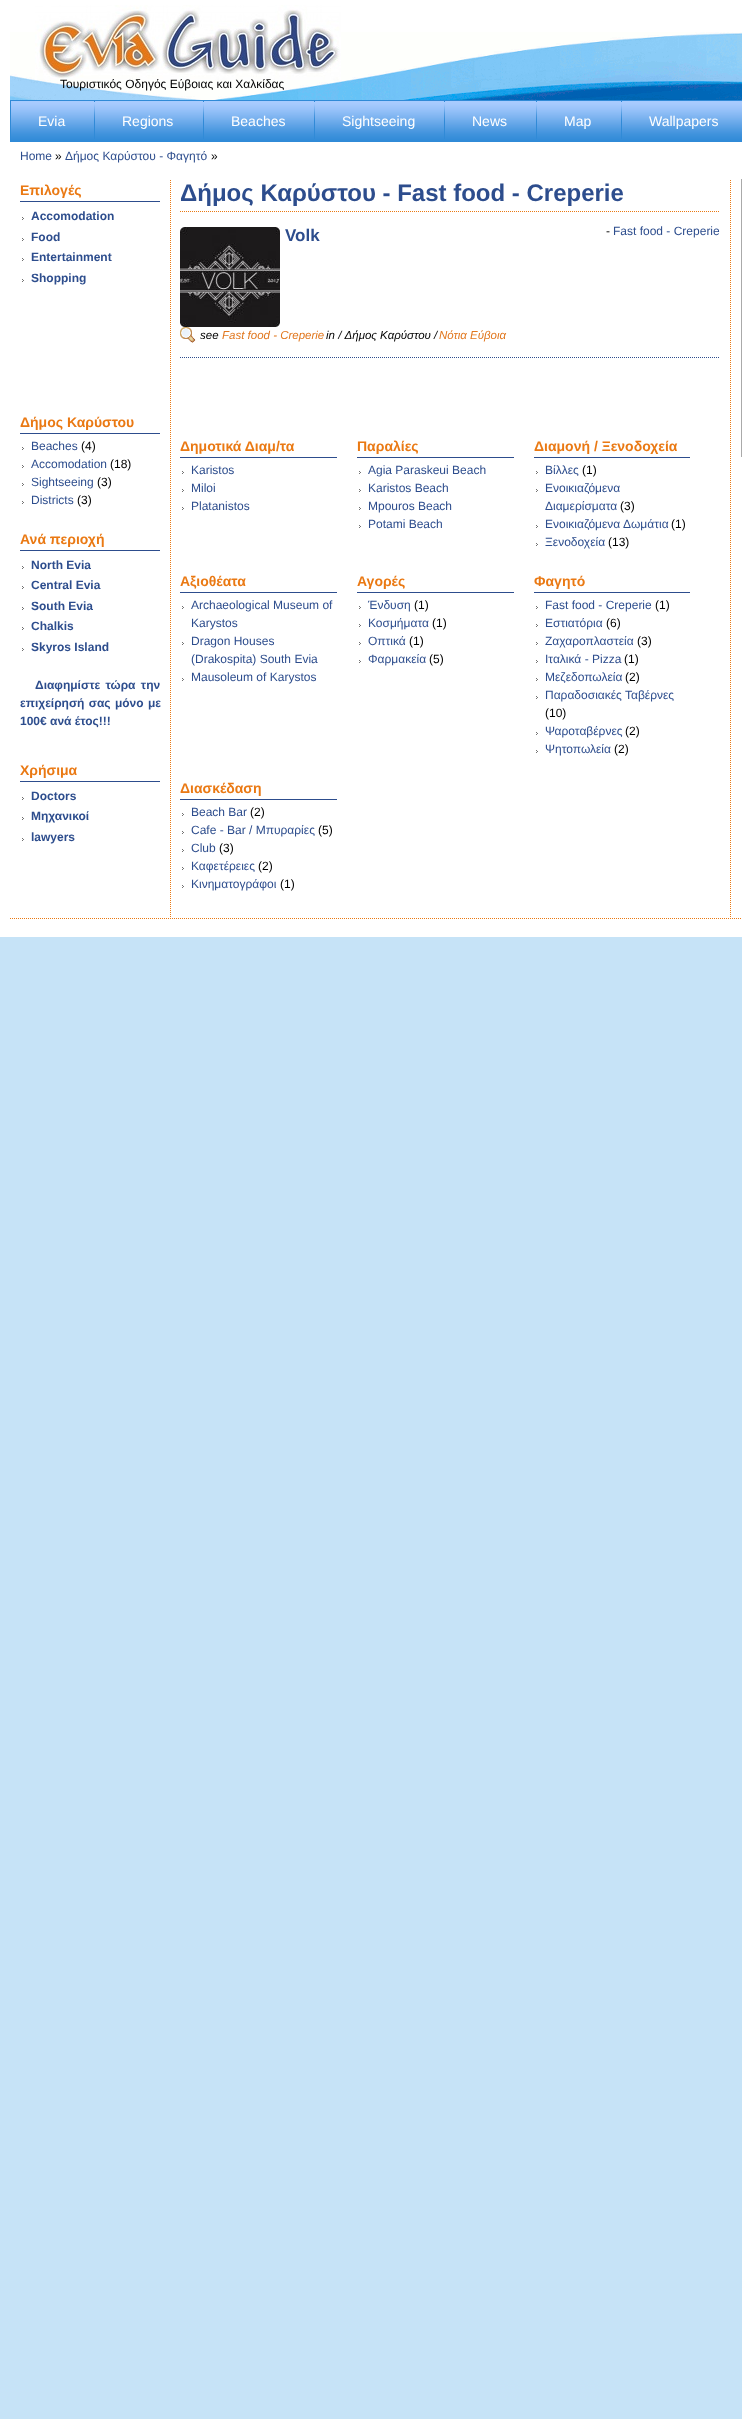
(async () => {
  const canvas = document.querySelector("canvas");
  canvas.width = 742;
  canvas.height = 2419;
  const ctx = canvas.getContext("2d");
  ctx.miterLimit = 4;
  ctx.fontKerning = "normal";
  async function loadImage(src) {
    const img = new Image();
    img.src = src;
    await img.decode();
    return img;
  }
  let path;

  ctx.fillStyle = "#c6e3f7";
  ctx.fillRect(0, 0, 742, 2419);
  ctx.fillStyle = "#ffffff";
  ctx.fillRect(0, 0, 742, 937);
  ctx.drawImage(await loadImage("img/1.png"), 10, 32, 732, 68);
  ctx.drawImage(await loadImage("img/2.png"), 35, 5, 306, 75);
  ctx.drawImage(await loadImage("img/3.png"), 11, 101, 731, 40);
  ctx.strokeStyle = "#308ad7";
  ctx.strokeRect(10.5, 100.5, 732, 41);
  ctx.drawImage(await loadImage("img/4.png"), 94, 101, 1, 38);
  ctx.drawImage(await loadImage("img/4.png"), 203, 101, 1, 38);
  ctx.drawImage(await loadImage("img/4.png"), 314, 101, 1, 38);
  ctx.drawImage(await loadImage("img/4.png"), 444, 101, 1, 38);
  ctx.drawImage(await loadImage("img/4.png"), 536, 101, 1, 38);
  ctx.drawImage(await loadImage("img/4.png"), 621, 101, 1, 38);
  path = new Path2D("M170.5 180V918");
  ctx.strokeStyle = "#ea7913";
  ctx.setLineDash([1, 1]);
  ctx.stroke(path);
  ctx.fillStyle = "#2d4d8d";
  ctx.fillRect(20, 201, 140, 1);
  ctx.drawImage(await loadImage("img/5.png"), 22, 217, 2, 3);
  ctx.drawImage(await loadImage("img/5.png"), 22, 238, 2, 3);
  ctx.drawImage(await loadImage("img/5.png"), 22, 258, 2, 3);
  ctx.drawImage(await loadImage("img/5.png"), 22, 279, 2, 3);
  ctx.fillRect(20, 433, 140, 1);
  ctx.drawImage(await loadImage("img/5.png"), 22, 447, 2, 3);
  ctx.drawImage(await loadImage("img/5.png"), 22, 465, 2, 3);
  ctx.drawImage(await loadImage("img/5.png"), 22, 483, 2, 3);
  ctx.drawImage(await loadImage("img/5.png"), 22, 501, 2, 3);
  ctx.fillRect(20, 550, 140, 1);
  ctx.drawImage(await loadImage("img/5.png"), 22, 566, 2, 3);
  ctx.drawImage(await loadImage("img/5.png"), 22, 586, 2, 3);
  ctx.drawImage(await loadImage("img/5.png"), 22, 607, 2, 3);
  ctx.drawImage(await loadImage("img/5.png"), 22, 627, 2, 3);
  ctx.drawImage(await loadImage("img/5.png"), 22, 648, 2, 3);
  ctx.fillRect(20, 781, 140, 1);
  ctx.drawImage(await loadImage("img/5.png"), 22, 797, 2, 3);
  ctx.drawImage(await loadImage("img/5.png"), 22, 817, 2, 3);
  ctx.drawImage(await loadImage("img/5.png"), 22, 838, 2, 3);
  path = new Path2D("M180 211.5H720");
  ctx.stroke(path);
  path = new Path2D("M180 357.5H720");
  ctx.strokeStyle = "#2d4d8d";
  ctx.stroke(path);
  ctx.drawImage(await loadImage("img/6.png"), 180, 227, 100, 100);
  ctx.drawImage(await loadImage("img/7.png"), 180, 327, 16, 16);
  ctx.fillRect(180, 457, 157, 1);
  ctx.drawImage(await loadImage("img/5.png"), 182, 471, 2, 3);
  ctx.drawImage(await loadImage("img/5.png"), 182, 489, 2, 3);
  ctx.drawImage(await loadImage("img/5.png"), 182, 507, 2, 3);
  ctx.fillRect(357, 457, 157, 1);
  ctx.drawImage(await loadImage("img/5.png"), 359, 471, 2, 3);
  ctx.drawImage(await loadImage("img/5.png"), 359, 489, 2, 3);
  ctx.drawImage(await loadImage("img/5.png"), 359, 507, 2, 3);
  ctx.drawImage(await loadImage("img/5.png"), 359, 525, 2, 3);
  ctx.fillRect(534, 457, 156, 1);
  ctx.drawImage(await loadImage("img/5.png"), 536, 471, 2, 3);
  ctx.drawImage(await loadImage("img/5.png"), 536, 489, 2, 3);
  ctx.drawImage(await loadImage("img/5.png"), 536, 525, 2, 3);
  ctx.drawImage(await loadImage("img/5.png"), 536, 543, 2, 3);
  ctx.fillRect(180, 592, 157, 1);
  ctx.drawImage(await loadImage("img/5.png"), 182, 606, 2, 3);
  ctx.drawImage(await loadImage("img/5.png"), 182, 642, 2, 3);
  ctx.drawImage(await loadImage("img/5.png"), 182, 678, 2, 3);
  ctx.fillRect(357, 592, 157, 1);
  ctx.drawImage(await loadImage("img/5.png"), 359, 606, 2, 3);
  ctx.drawImage(await loadImage("img/5.png"), 359, 624, 2, 3);
  ctx.drawImage(await loadImage("img/5.png"), 359, 642, 2, 3);
  ctx.drawImage(await loadImage("img/5.png"), 359, 660, 2, 3);
  ctx.fillRect(534, 592, 156, 1);
  ctx.drawImage(await loadImage("img/5.png"), 536, 606, 2, 3);
  ctx.drawImage(await loadImage("img/5.png"), 536, 624, 2, 3);
  ctx.drawImage(await loadImage("img/5.png"), 536, 642, 2, 3);
  ctx.drawImage(await loadImage("img/5.png"), 536, 660, 2, 3);
  ctx.drawImage(await loadImage("img/5.png"), 536, 678, 2, 3);
  ctx.drawImage(await loadImage("img/5.png"), 536, 696, 2, 3);
  ctx.drawImage(await loadImage("img/5.png"), 536, 732, 2, 3);
  ctx.drawImage(await loadImage("img/5.png"), 536, 750, 2, 3);
  ctx.fillRect(180, 799, 157, 1);
  ctx.drawImage(await loadImage("img/5.png"), 182, 813, 2, 3);
  ctx.drawImage(await loadImage("img/5.png"), 182, 831, 2, 3);
  ctx.drawImage(await loadImage("img/5.png"), 182, 849, 2, 3);
  ctx.drawImage(await loadImage("img/5.png"), 182, 867, 2, 3);
  ctx.drawImage(await loadImage("img/5.png"), 182, 885, 2, 3);
  path = new Path2D("M730.5 180V918");
  ctx.strokeStyle = "#ea7913";
  ctx.stroke(path);
  ctx.fillStyle = "#aaaaaa";
  ctx.fillRect(741, 179, 1, 278);
  path = new Path2D("M10 918.5H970");
  ctx.stroke(path);
  ctx.font = "12px Liberation Sans";
  ctx.fillStyle = "#000000";
  ctx.fillText("Τουριστικός Οδηγός Εύβοιας και Χαλκίδας", 60, 88);
  ctx.font = "14px Liberation Sans";
  ctx.fillStyle = "#ffffff";
  for (const [text, x, y] of [
    ["Evia", 38, 126],
    ["Regions", 122, 126],
    ["Beaches", 231, 126],
    ["Sightseeing", 342, 126],
    ["News", 472, 126],
    ["Map", 564, 126],
    ["Wallpapers", 649, 126],
  ]) {
    ctx.fillText(text, x, y);
  }
  ctx.font = "12px Liberation Sans";
  ctx.fillStyle = "#2d4d8d";
  ctx.fillText("Home", 20, 160);
  ctx.fillStyle = "#000000";
  ctx.fillText("»", 55, 160);
  ctx.fillStyle = "#2d4d8d";
  ctx.fillText("Δήμος Καρύστου - Φαγητό", 65, 160);
  ctx.fillStyle = "#000000";
  ctx.fillText("»", 211, 160);
  ctx.font = "bold 14px Liberation Sans";
  ctx.fillStyle = "#ea7913";
  ctx.fillText("Επιλογές", 20, 195);
  ctx.font = "bold 12px Liberation Sans";
  ctx.fillStyle = "#2d4d8d";
  for (const [text, x, y] of [
    ["Accomodation", 31, 220],
    ["Food", 31, 241],
    ["Entertainment", 31, 261],
    ["Shopping", 31, 282],
  ]) {
    ctx.fillText(text, x, y);
  }
  ctx.font = "bold 14px Liberation Sans";
  ctx.fillStyle = "#ea7913";
  ctx.fillText("Δήμος Καρύστου", 20, 427);
  ctx.font = "12px Liberation Sans";
  ctx.fillStyle = "#2d4d8d";
  ctx.fillText("Beaches", 31, 450);
  ctx.fillStyle = "#000000";
  ctx.fillText("(4)", 81, 450);
  ctx.fillStyle = "#2d4d8d";
  ctx.fillText("Accomodation", 31, 468);
  ctx.fillStyle = "#000000";
  ctx.fillText("(18)", 110, 468);
  ctx.fillStyle = "#2d4d8d";
  ctx.fillText("Sightseeing", 31, 486);
  ctx.fillStyle = "#000000";
  ctx.fillText("(3)", 97, 486);
  ctx.fillStyle = "#2d4d8d";
  ctx.fillText("Districts", 31, 504);
  ctx.fillStyle = "#000000";
  ctx.fillText("(3)", 77, 504);
  ctx.font = "bold 14px Liberation Sans";
  ctx.fillStyle = "#ea7913";
  ctx.fillText("Ανά περιοχή", 20, 544);
  ctx.font = "bold 12px Liberation Sans";
  ctx.fillStyle = "#2d4d8d";
  for (const [text, x, y] of [
    ["North Evia", 31, 569],
    ["Central Evia", 31, 589],
    ["South Evia", 31, 610],
    ["Chalkis", 31, 630],
    ["Skyros Island", 31, 651],
  ]) {
    ctx.fillText(text, x, y);
  }
  ctx.wordSpacing = "2px";
  ctx.fillText("Διαφημίστε τώρα την", 35, 689);
  ctx.wordSpacing = "1px";
  ctx.fillText("επιχείρησή σας μόνο με", 20, 707);
  ctx.wordSpacing = "0px";
  ctx.fillText("100€ ανά έτος!!!", 20, 725);
  ctx.font = "bold 14px Liberation Sans";
  ctx.fillStyle = "#ea7913";
  ctx.fillText("Χρήσιμα", 20, 775);
  ctx.font = "bold 12px Liberation Sans";
  ctx.fillStyle = "#2d4d8d";
  for (const [text, x, y] of [
    ["Doctors", 31, 800],
    ["Μηχανικοί", 31, 820],
    ["lawyers", 31, 841],
  ]) {
    ctx.fillText(text, x, y);
  }
  ctx.font = "bold 24px Liberation Sans";
  ctx.fillText("Δήμος Καρύστου - Fast food - Creperie", 180, 201);
  ctx.font = "bold 17px Liberation Sans";
  ctx.fillText("Volk", 285, 241);
  ctx.font = "12px Liberation Sans";
  ctx.fillStyle = "#000000";
  ctx.fillText("-", 606, 235);
  ctx.fillStyle = "#2d4d8d";
  ctx.fillText("Fast food - Creperie", 613, 235);
  ctx.font = "italic 11.5px Liberation Sans";
  ctx.fillStyle = "#000000";
  ctx.fillText("see", 200, 339);
  ctx.fillStyle = "#e1771e";
  ctx.fillText("Fast food - Creperie", 222, 339);
  ctx.fillStyle = "#000000";
  ctx.fillText("in / Δήμος Καρύστου /", 326, 339);
  ctx.fillStyle = "#e1771e";
  ctx.fillText("Νότια Εύβοια", 439, 339);
  ctx.font = "bold 14px Liberation Sans";
  ctx.fillStyle = "#ea7913";
  ctx.fillText("Δημοτικά Διαμ/τα", 180, 451);
  ctx.font = "12px Liberation Sans";
  ctx.fillStyle = "#2d4d8d";
  for (const [text, x, y] of [
    ["Karistos", 191, 474],
    ["Miloi", 191, 492],
    ["Platanistos", 191, 510],
  ]) {
    ctx.fillText(text, x, y);
  }
  ctx.font = "bold 14px Liberation Sans";
  ctx.fillStyle = "#ea7913";
  ctx.fillText("Παραλίες", 357, 451);
  ctx.font = "12px Liberation Sans";
  ctx.fillStyle = "#2d4d8d";
  for (const [text, x, y] of [
    ["Agia Paraskeui Beach", 368, 474],
    ["Karistos Beach", 368, 492],
    ["Mpouros Beach", 368, 510],
    ["Potami Beach", 368, 528],
  ]) {
    ctx.fillText(text, x, y);
  }
  ctx.font = "bold 14px Liberation Sans";
  ctx.fillStyle = "#ea7913";
  ctx.fillText("Διαμονή / Ξενοδοχεία", 534, 451);
  ctx.font = "12px Liberation Sans";
  ctx.fillStyle = "#2d4d8d";
  ctx.fillText("Βίλλες", 545, 474);
  ctx.fillStyle = "#000000";
  ctx.fillText("(1)", 582, 474);
  ctx.fillStyle = "#2d4d8d";
  ctx.fillText("Ενοικιαζόμενα", 545, 492);
  ctx.fillText("Διαμερίσματα", 545, 510);
  ctx.fillStyle = "#000000";
  ctx.fillText("(3)", 620, 510);
  ctx.fillStyle = "#2d4d8d";
  ctx.fillText("Ενοικιαζόμενα Δωμάτια", 545, 528);
  ctx.fillStyle = "#000000";
  ctx.fillText("(1)", 671, 528);
  ctx.fillStyle = "#2d4d8d";
  ctx.fillText("Ξενοδοχεία", 545, 546);
  ctx.fillStyle = "#000000";
  ctx.fillText("(13)", 608, 546);
  ctx.font = "bold 14px Liberation Sans";
  ctx.fillStyle = "#ea7913";
  ctx.fillText("Αξιοθέατα", 180, 586);
  ctx.font = "12px Liberation Sans";
  ctx.fillStyle = "#2d4d8d";
  for (const [text, x, y] of [
    ["Archaeological Museum of", 191, 609],
    ["Karystos", 191, 627],
    ["Dragon Houses", 191, 645],
    ["(Drakospita) South Evia", 191, 663],
    ["Mausoleum of Karystos", 191, 681],
  ]) {
    ctx.fillText(text, x, y);
  }
  ctx.font = "bold 14px Liberation Sans";
  ctx.fillStyle = "#ea7913";
  ctx.fillText("Αγορές", 357, 586);
  ctx.font = "12px Liberation Sans";
  ctx.fillStyle = "#2d4d8d";
  ctx.fillText("Ένδυση", 368, 609);
  ctx.fillStyle = "#000000";
  ctx.fillText("(1)", 414, 609);
  ctx.fillStyle = "#2d4d8d";
  ctx.fillText("Κοσμήματα", 368, 627);
  ctx.fillStyle = "#000000";
  ctx.fillText("(1)", 432, 627);
  ctx.fillStyle = "#2d4d8d";
  ctx.fillText("Οπτικά", 368, 645);
  ctx.fillStyle = "#000000";
  ctx.fillText("(1)", 409, 645);
  ctx.fillStyle = "#2d4d8d";
  ctx.fillText("Φαρμακεία", 368, 663);
  ctx.fillStyle = "#000000";
  ctx.fillText("(5)", 429, 663);
  ctx.font = "bold 14px Liberation Sans";
  ctx.fillStyle = "#ea7913";
  ctx.fillText("Φαγητό", 534, 586);
  ctx.font = "12px Liberation Sans";
  ctx.fillStyle = "#2d4d8d";
  ctx.fillText("Fast food - Creperie", 545, 609);
  ctx.fillStyle = "#000000";
  ctx.fillText("(1)", 655, 609);
  ctx.fillStyle = "#2d4d8d";
  ctx.fillText("Εστιατόρια", 545, 627);
  ctx.fillStyle = "#000000";
  ctx.fillText("(6)", 606, 627);
  ctx.fillStyle = "#2d4d8d";
  ctx.fillText("Ζαχαροπλαστεία", 545, 645);
  ctx.fillStyle = "#000000";
  ctx.fillText("(3)", 637, 645);
  ctx.fillStyle = "#2d4d8d";
  ctx.fillText("Ιταλικά - Pizza", 545, 663);
  ctx.fillStyle = "#000000";
  ctx.fillText("(1)", 624, 663);
  ctx.fillStyle = "#2d4d8d";
  ctx.fillText("Μεζεδοπωλεία", 545, 681);
  ctx.fillStyle = "#000000";
  ctx.fillText("(2)", 625, 681);
  ctx.fillStyle = "#2d4d8d";
  ctx.fillText("Παραδοσιακές Ταβέρνες", 545, 699);
  ctx.fillStyle = "#000000";
  ctx.fillText("(10)", 545, 717);
  ctx.fillStyle = "#2d4d8d";
  ctx.fillText("Ψαροταβέρνες", 545, 735);
  ctx.fillStyle = "#000000";
  ctx.fillText("(2)", 625, 735);
  ctx.fillStyle = "#2d4d8d";
  ctx.fillText("Ψητοπωλεία", 545, 753);
  ctx.fillStyle = "#000000";
  ctx.fillText("(2)", 614, 753);
  ctx.font = "bold 14px Liberation Sans";
  ctx.fillStyle = "#ea7913";
  ctx.fillText("Διασκέδαση", 180, 793);
  ctx.font = "12px Liberation Sans";
  ctx.fillStyle = "#2d4d8d";
  ctx.fillText("Beach Bar", 191, 816);
  ctx.fillStyle = "#000000";
  ctx.fillText("(2)", 250, 816);
  ctx.fillStyle = "#2d4d8d";
  ctx.fillText("Cafe - Bar / Μπυραρίες", 191, 834);
  ctx.fillStyle = "#000000";
  ctx.fillText("(5)", 318, 834);
  ctx.fillStyle = "#2d4d8d";
  ctx.fillText("Club", 191, 852);
  ctx.fillStyle = "#000000";
  ctx.fillText("(3)", 219, 852);
  ctx.fillStyle = "#2d4d8d";
  ctx.fillText("Καφετέρειες", 191, 870);
  ctx.fillStyle = "#000000";
  ctx.fillText("(2)", 258, 870);
  ctx.fillStyle = "#2d4d8d";
  ctx.fillText("Κινηματογράφοι", 191, 888);
  ctx.fillStyle = "#000000";
  ctx.fillText("(1)", 280, 888);
})();
